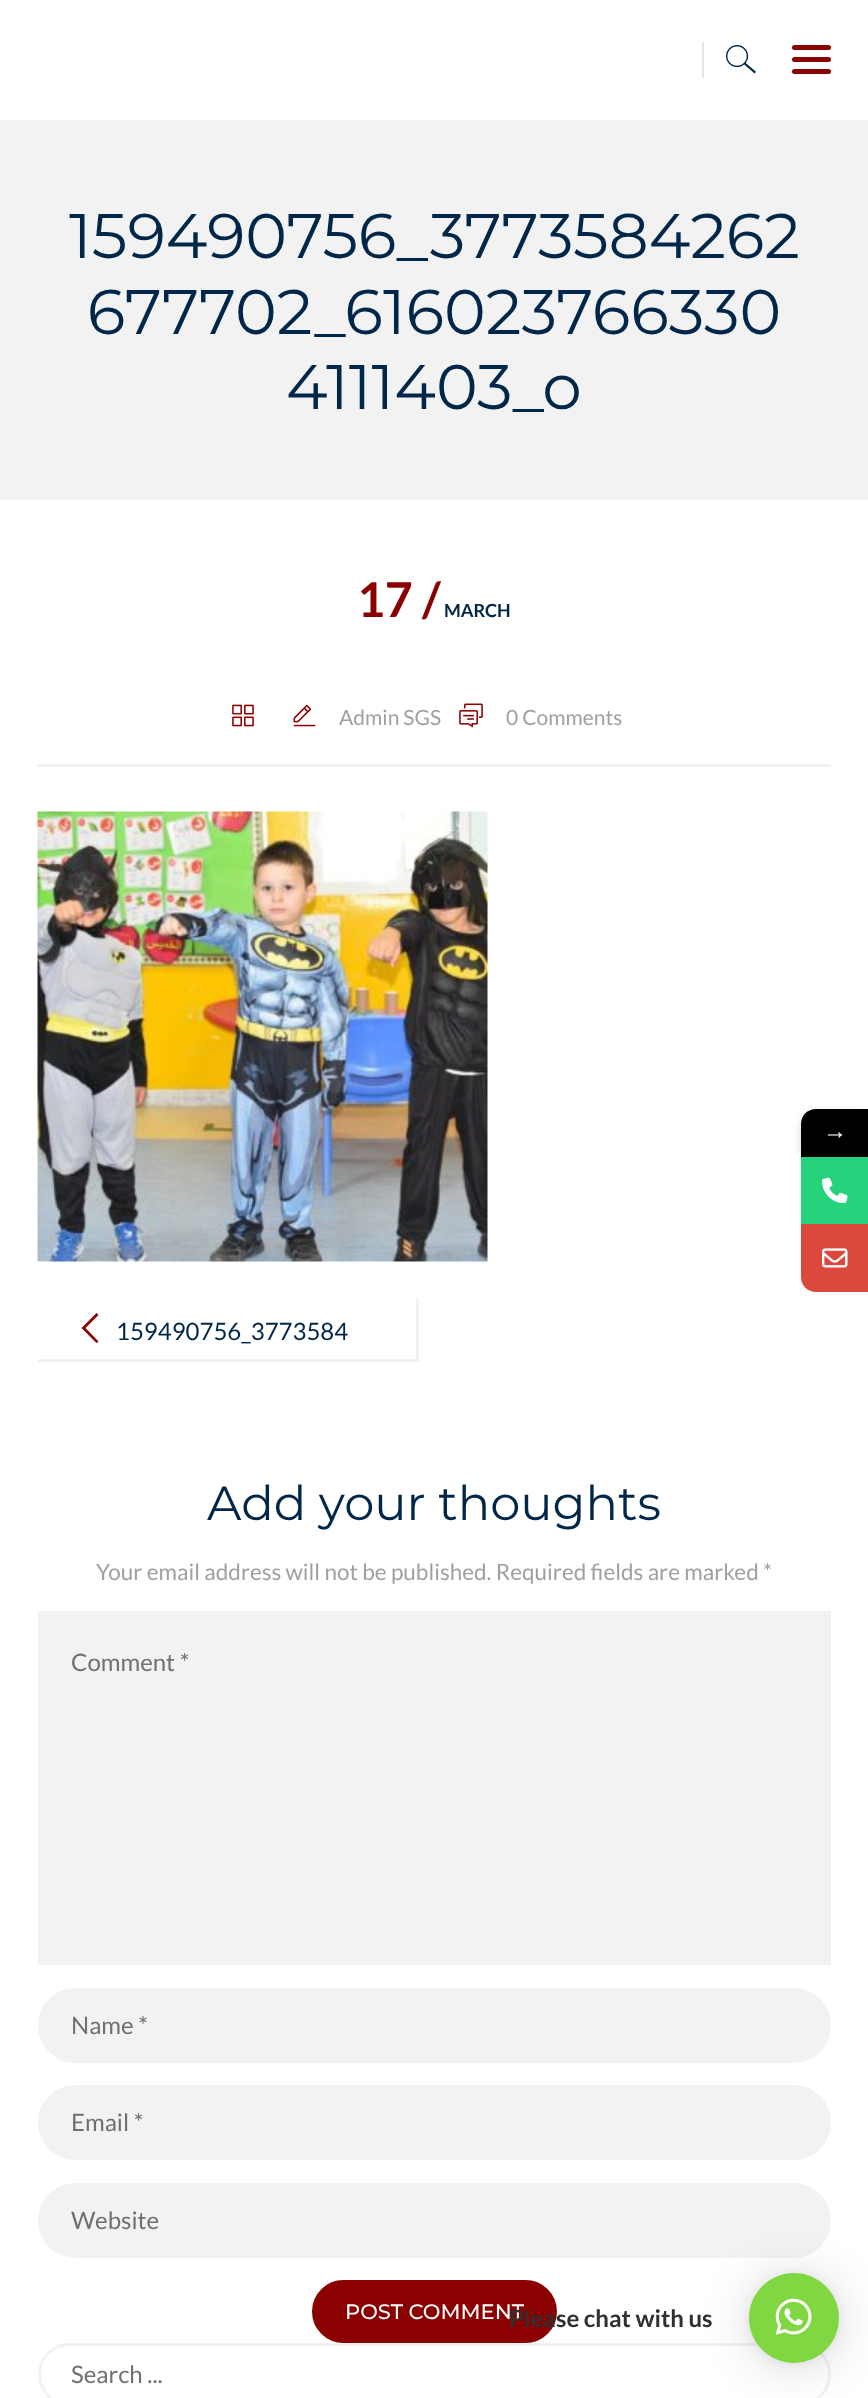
(async () => {
  const canvas = document.querySelector("canvas");
  canvas.width = 868;
  canvas.height = 2398;
  const ctx = canvas.getContext("2d");
  ctx.miterLimit = 4;
  ctx.fontKerning = "normal";
  async function loadImage(src) {
    const img = new Image();
    img.src = src;
    await img.decode();
    return img;
  }
  let path;

  ctx.fillStyle = "#ffffff";
  ctx.fillRect(0, 0, 868, 2398);
  ctx.fillStyle = "#e5e5e5";
  ctx.fillRect(702, 42, 2, 36);
  ctx.drawImage(await loadImage("img/1.png"), 726, 45, 30, 29);
  ctx.fillStyle = "#8b0000";
  ctx.beginPath();
  ctx.roundRect(792, 45, 39, 5, 2.5);
  ctx.fill();
  ctx.beginPath();
  ctx.roundRect(792, 57, 39, 5, 2.5);
  ctx.fill();
  ctx.beginPath();
  ctx.roundRect(792, 69, 39, 5, 2.5);
  ctx.fill();
  ctx.fillStyle = "#f2f2f2";
  ctx.fillRect(0, 120, 868, 380);
  ctx.fillRect(38, 764, 793, 3);
  ctx.drawImage(await loadImage("img/2.png"), 232, 704, 22, 23);
  ctx.drawImage(await loadImage("img/3.png"), 293, 704, 23, 23);
  ctx.drawImage(await loadImage("img/4.png"), 459, 703, 24, 25);
  ctx.drawImage(await loadImage("img/5.png"), 37, 811, 451, 451);
  ctx.fillRect(416, 1299, 3, 63);
  ctx.fillRect(38, 1359, 381, 3);
  ctx.fillStyle = "#8b0000";
  path = new Path2D("M98.5 1315L85.5 1328L98.5 1341.5L96.5 1343L81.5 1328L96.5 1313Z");
  ctx.fill(path);
  ctx.fillStyle = "#f2f2f2";
  ctx.fillRect(38, 1611, 793, 354);
  ctx.beginPath();
  ctx.roundRect(39.5, 1989.5, 790, 72, 36);
  ctx.fill();
  ctx.strokeStyle = "#f2f2f2";
  ctx.lineWidth = 3;
  ctx.stroke();
  ctx.beginPath();
  ctx.roundRect(39.5, 2086.5, 790, 72, 36);
  ctx.fill();
  ctx.stroke();
  ctx.beginPath();
  ctx.roundRect(39.5, 2184.5, 790, 72, 36);
  ctx.fill();
  ctx.stroke();
  ctx.fillStyle = "#8b0000";
  ctx.beginPath();
  ctx.roundRect(313.5, 2281.5, 242, 60, 30);
  ctx.fill();
  ctx.strokeStyle = "#8b0000";
  ctx.stroke();
  ctx.beginPath();
  ctx.roundRect(39.5, 2344.5, 790, 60, 30);
  ctx.strokeStyle = "#f2f2f2";
  ctx.stroke();
  ctx.fillStyle = "rgba(0, 0, 0, 0.16)";
  ctx.filter = "blur(4.5px)";
  ctx.beginPath();
  ctx.roundRect(801, 1113, 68, 48, 15);
  ctx.fill();
  ctx.filter = "none";
  ctx.fillStyle = "#000000";
  path = new Path2D("M816 1109H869V1157H801V1124C801 1115.5 807.5 1109 816 1109Z");
  ctx.fill(path);
  ctx.fillStyle = "#26d37c";
  ctx.fillRect(801, 1157, 67, 67);
  ctx.drawImage(await loadImage("img/6.png"), 822, 1177, 26, 27);
  ctx.fillStyle = "#dc483c";
  path = new Path2D("M801 1224H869V1292H816C807.5 1292 801 1285.5 801 1277Z");
  ctx.fill(path);
  ctx.drawImage(await loadImage("img/7.png"), 822, 1248, 26, 20);
  ctx.fillStyle = "rgba(0, 0, 0, 0.16)";
  ctx.filter = "blur(24px)";
  ctx.beginPath();
  ctx.roundRect(749, 2276, 90, 90, 45);
  ctx.fill();
  ctx.filter = "none";
  ctx.fillStyle = "rgba(0, 0, 0, 0.06)";
  ctx.filter = "blur(4.5px)";
  ctx.beginPath();
  ctx.roundRect(749, 2274, 90, 90, 45);
  ctx.fill();
  ctx.filter = "none";
  ctx.fillStyle = "#81d742";
  ctx.beginPath();
  ctx.arc(794, 2318, 45, 0, Math.PI * 2);
  ctx.fill();
  ctx.drawImage(await loadImage("img/8.png"), 775, 2298, 37, 37);
  ctx.font = "63px Montserrat";
  ctx.fillStyle = "#002749";
  for (const [text, x, y] of [
    ["159490756_3773584262", 69, 258],
    ["677702_616023766330", 87, 334],
    ["4111403_o", 286, 409],
  ]) {
    ctx.fillText(text, x, y);
  }
  ctx.font = "bold 48px Lato";
  ctx.fillStyle = "#8b0000";
  ctx.fillText("17 /", 357, 617);
  ctx.font = "bold 18px Lato";
  ctx.fillStyle = "#002749";
  ctx.fillText("MARCH", 444, 617);
  ctx.font = "21px Lato";
  ctx.fillStyle = "#a0a0a0";
  ctx.fillText("Admin SGS", 339, 725);
  ctx.fillText("0 Comments", 506, 725);
  ctx.font = "24px Lato";
  ctx.fillStyle = "#002749";
  ctx.fillText("159490756_3773584", 116, 1340);
  ctx.font = "48px Montserrat";
  ctx.fillText("Add your thoughts", 207, 1520);
  ctx.font = "22.5px Lato";
  ctx.fillStyle = "#a0a0a0";
  ctx.fillText("Your email address will not be published. Required fields are marked *", 96, 1580);
  ctx.font = "24px Lato";
  ctx.fillStyle = "#707070";
  for (const [text, x, y] of [
    ["Comment *", 71, 1671],
    ["Name *", 71, 2034],
    ["Email *", 71, 2131],
    ["Website", 71, 2229],
  ]) {
    ctx.fillText(text, x, y);
  }
  ctx.font = "500 21px Montserrat";
  ctx.fillStyle = "#ffffff";
  ctx.fillText("POST COMMENT", 345, 2319);
  ctx.font = "24px Lato";
  ctx.fillStyle = "#707070";
  ctx.fillText("Search ...", 71, 2383);
  ctx.font = "24px Liberation Serif";
  ctx.fillStyle = "#ffffff";
  ctx.fillText("→", 823, 1139);
  ctx.font = "bold 24px Lato";
  ctx.fillStyle = "#303030";
  ctx.fillText("Please chat with us", 509, 2327);
})();
